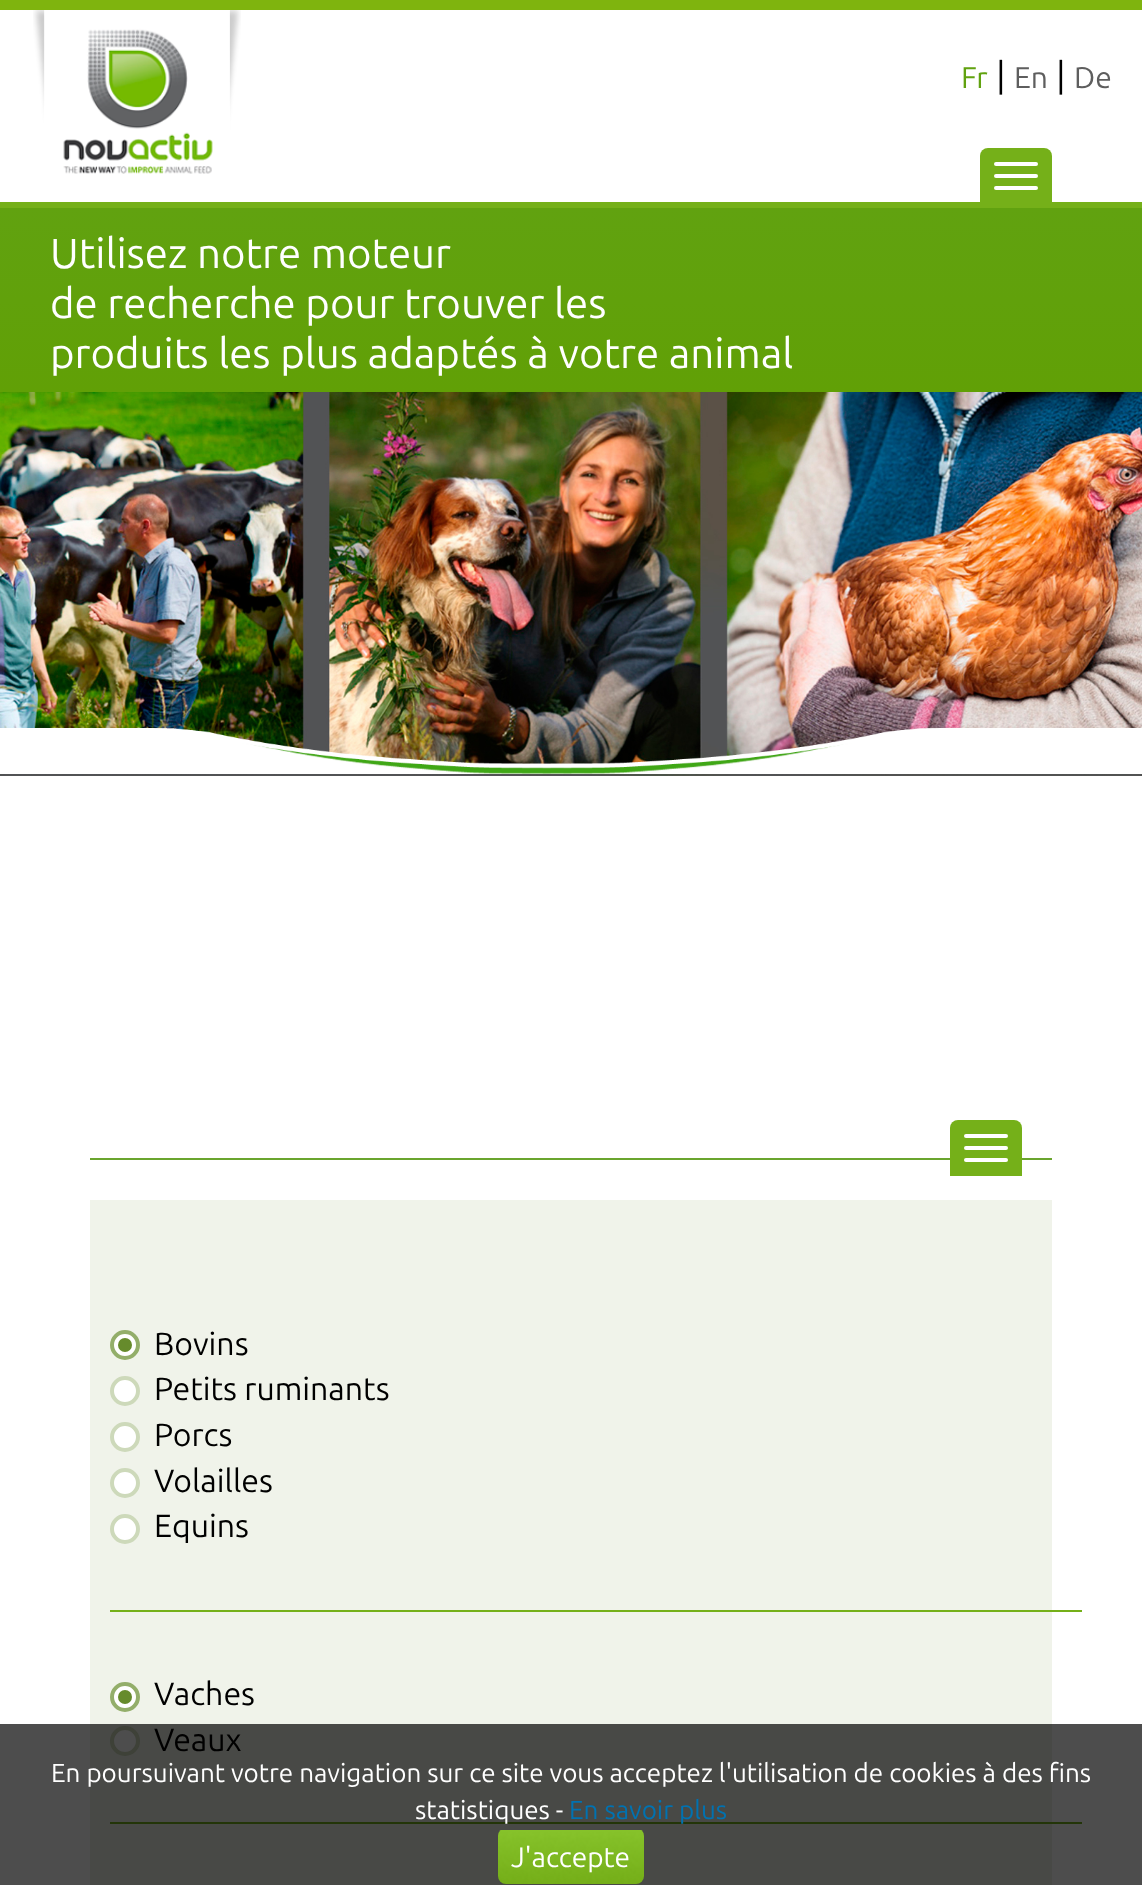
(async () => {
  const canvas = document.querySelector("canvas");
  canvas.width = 1142;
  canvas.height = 1885;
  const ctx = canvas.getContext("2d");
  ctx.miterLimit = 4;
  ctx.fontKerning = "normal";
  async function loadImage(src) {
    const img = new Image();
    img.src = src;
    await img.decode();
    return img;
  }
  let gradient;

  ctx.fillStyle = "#ffffff";
  ctx.fillRect(0, 0, 1142, 1885);
  for (const [x, y, w, h, color] of [
    [0, 1724, 1142, 161, "#4d4d4d"],
    [0, 0, 1142, 10, "#7fb40e"],
    [0, 202, 1142, 6, "#75b019"],
  ]) {
    ctx.fillStyle = color;
    ctx.fillRect(x, y, w, h);
  }
  ctx.drawImage(await loadImage("img/1.png"), 33, 10, 208, 164);
  ctx.beginPath();
  ctx.roundRect(980, 148, 72, 56, [8, 8, 0, 0]);
  ctx.fill();
  ctx.fillStyle = "#ffffff";
  ctx.beginPath();
  ctx.roundRect(994, 162, 44, 4, 2);
  ctx.fill();
  ctx.beginPath();
  ctx.roundRect(994, 174, 44, 4, 2);
  ctx.fill();
  ctx.beginPath();
  ctx.roundRect(994, 186, 44, 4, 2);
  ctx.fill();
  gradient = ctx.createLinearGradient(571, 208, 571, 392);
  gradient.addColorStop(0, "#61a210");
  gradient.addColorStop(1, "#61a006");
  ctx.fillStyle = gradient;
  ctx.fillRect(0, 208, 1142, 184);
  ctx.drawImage(await loadImage("img/2.png"), 0, 392, 1142, 384);
  ctx.drawImage(await loadImage("img/3.png"), 0, 728, 1142, 46);
  ctx.fillStyle = "#6aa52e";
  ctx.fillRect(90, 1158, 962, 2);
  ctx.fillStyle = "#75b019";
  ctx.beginPath();
  ctx.roundRect(950, 1120, 72, 56, [8, 8, 0, 0]);
  ctx.fill();
  ctx.fillStyle = "#ffffff";
  ctx.beginPath();
  ctx.roundRect(964, 1134, 44, 4, 2);
  ctx.fill();
  ctx.beginPath();
  ctx.roundRect(964, 1146, 44, 4, 2);
  ctx.fill();
  ctx.beginPath();
  ctx.roundRect(964, 1158, 44, 4, 2);
  ctx.fill();
  for (const [x, y, w, h, color] of [
    [90, 1200, 962, 524, "#f0f3ea"],
    [90, 1724, 962, 161, "#484946"],
    [110, 1610, 972, 2, "#75b019"],
  ]) {
    ctx.fillStyle = color;
    ctx.fillRect(x, y, w, h);
  }
  ctx.fillStyle = "#ffffff";
  ctx.beginPath();
  ctx.arc(125, 1345, 13, 0, Math.PI * 2);
  ctx.fill();
  ctx.strokeStyle = "#93ae6a";
  ctx.lineWidth = 4;
  ctx.stroke();
  ctx.fillStyle = "#668b2c";
  ctx.beginPath();
  ctx.arc(125, 1345, 7, 0, Math.PI * 2);
  ctx.fill();
  ctx.fillStyle = "#ffffff";
  ctx.beginPath();
  ctx.arc(125, 1391, 13, 0, Math.PI * 2);
  ctx.fill();
  ctx.strokeStyle = "#cdd9ba";
  ctx.stroke();
  ctx.beginPath();
  ctx.arc(125, 1437, 13, 0, Math.PI * 2);
  ctx.fill();
  ctx.stroke();
  ctx.beginPath();
  ctx.arc(125, 1483, 13, 0, Math.PI * 2);
  ctx.fill();
  ctx.stroke();
  ctx.beginPath();
  ctx.arc(125, 1529, 13, 0, Math.PI * 2);
  ctx.fill();
  ctx.stroke();
  ctx.fillStyle = "#233508";
  ctx.fillRect(110, 1822, 972, 2);
  ctx.fillStyle = "#ffffff";
  ctx.beginPath();
  ctx.arc(125, 1697, 13, 0, Math.PI * 2);
  ctx.fill();
  ctx.strokeStyle = "#93ae6a";
  ctx.stroke();
  ctx.fillStyle = "#668b2c";
  ctx.beginPath();
  ctx.arc(125, 1697, 7, 0, Math.PI * 2);
  ctx.fill();
  ctx.fillStyle = "#4d4d4d";
  ctx.beginPath();
  ctx.arc(125, 1741, 13, 0, Math.PI * 2);
  ctx.fill();
  ctx.strokeStyle = "#3e4138";
  ctx.stroke();
  ctx.drawImage(await loadImage("img/4.png"), 498, 1830, 146, 54);
  ctx.font = "30px Ubuntu";
  ctx.fillStyle = "#61a210";
  ctx.fillText("Fr", 961, 88);
  ctx.font = "36px Ubuntu";
  ctx.fillStyle = "#000000";
  ctx.fillText("|", 996, 88);
  ctx.font = "30px Ubuntu";
  ctx.fillStyle = "#5e5e5e";
  ctx.fillText("En", 1014, 88);
  ctx.font = "36px Ubuntu";
  ctx.fillStyle = "#000000";
  ctx.fillText("|", 1056, 88);
  ctx.font = "30px Ubuntu";
  ctx.fillStyle = "#5e5e5e";
  ctx.fillText("De", 1074, 88);
  ctx.font = "42px Ubuntu";
  ctx.fillStyle = "#ffffff";
  for (const [text, x, y] of [
    ["Utilisez notre moteur", 50, 268],
    ["de recherche pour trouver les", 50, 318],
    ["produits les plus adaptés à votre animal", 50, 368],
  ]) {
    ctx.fillText(text, x, y);
  }
  ctx.font = "32px Ubuntu";
  ctx.fillStyle = "#000000";
  for (const [text, x, y] of [
    ["Bovins", 154, 1355],
    ["Petits ruminants", 154, 1400],
    ["Porcs", 154, 1446],
    ["Volailles", 154, 1492],
    ["Equins", 154, 1537],
    ["Vaches", 154, 1705],
    ["Veaux", 154, 1751],
  ]) {
    ctx.fillText(text, x, y);
  }
  ctx.font = "26px Ubuntu";
  ctx.fillStyle = "#ffffff";
  ctx.fillText("En poursuivant votre navigation sur ce site vous acceptez l'utilisation de cookies à des fins", 51, 1782);
  ctx.fillText("statistiques -", 415, 1819);
  ctx.fillStyle = "#0072b1";
  ctx.fillText("En savoir plus", 569, 1819);
  ctx.font = "28px Ubuntu";
  ctx.fillStyle = "#ffffff";
  ctx.fillText("J'accepte", 511, 1867);
})();
